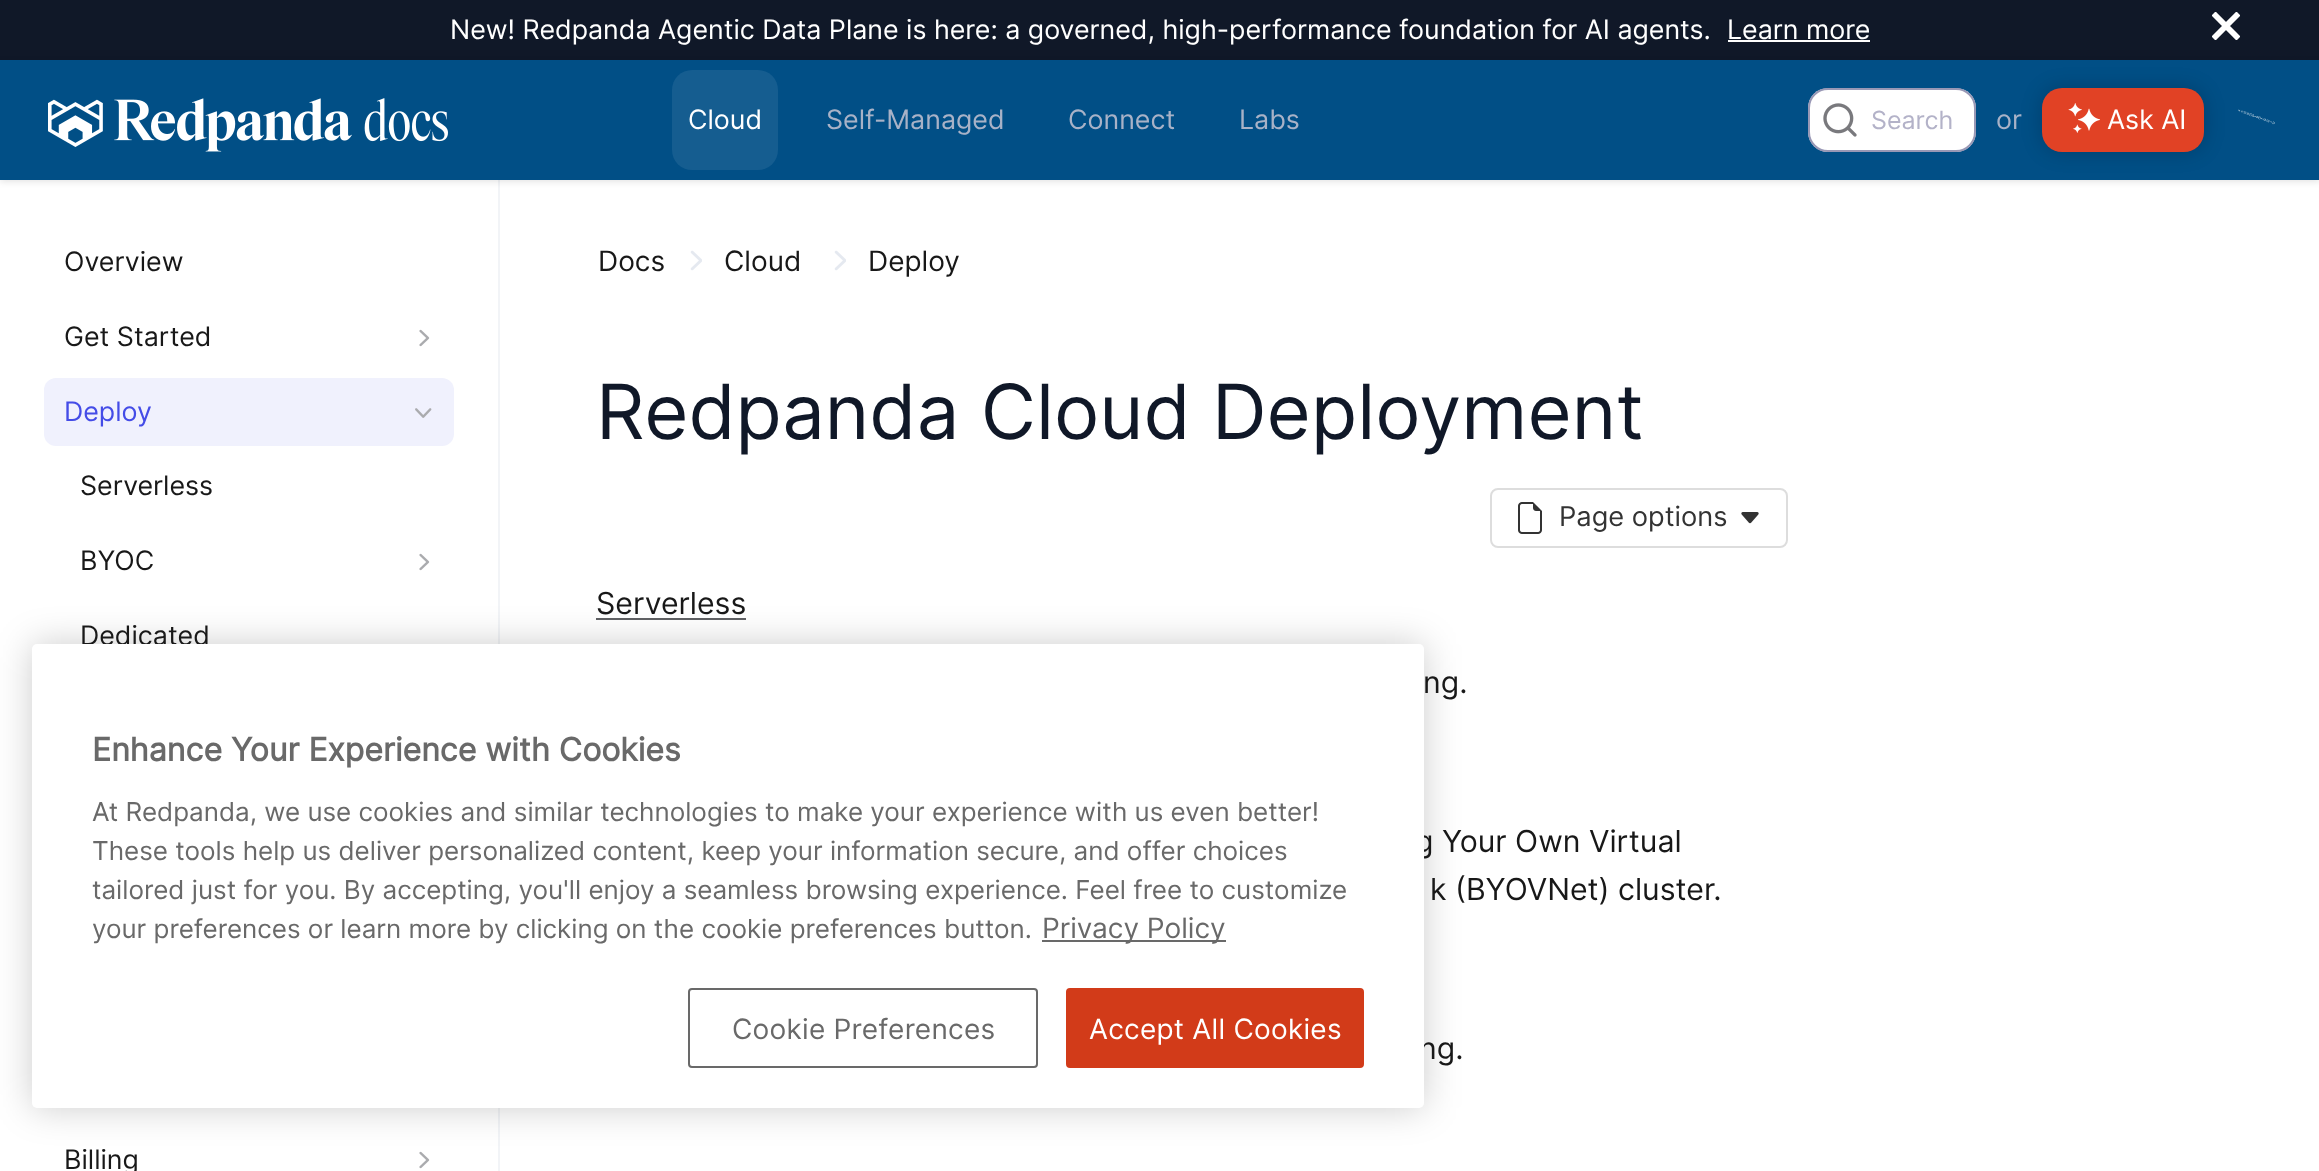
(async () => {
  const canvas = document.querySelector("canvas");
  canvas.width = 2319;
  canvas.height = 1171;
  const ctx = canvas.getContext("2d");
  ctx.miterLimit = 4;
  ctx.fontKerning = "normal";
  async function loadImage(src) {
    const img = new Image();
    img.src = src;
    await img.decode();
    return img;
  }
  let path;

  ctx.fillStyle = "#ffffff";
  ctx.fillRect(0, 0, 2319, 1171);
  ctx.fillStyle = "#101828";
  ctx.fillRect(0, 0, 2319, 60);
  ctx.fillStyle = "#ffffff";
  ctx.fillRect(1728, 40, 142, 2);
  ctx.save();
  ctx.beginPath();
  ctx.rect(2212, 12, 28, 28);
  ctx.clip();
  path = new Path2D("M2213.5 13.5L2238.5 38.5M2238.5 13.5L2213.5 38.5");
  ctx.strokeStyle = "#ffffff";
  ctx.lineWidth = 5.8;
  ctx.stroke(path);
  ctx.restore();
  ctx.fillStyle = "#f2f4f7";
  ctx.fillRect(498, 180, 2, 991);
  ctx.fillStyle = "rgba(0, 0, 0, 0.1)";
  ctx.filter = "blur(3px)";
  ctx.beginPath();
  ctx.rect(0, 62, 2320, 120);
  ctx.fill();
  ctx.filter = "none";
  ctx.fillStyle = "#014f86";
  ctx.fillRect(0, 60, 2319, 120);
  ctx.drawImage(await loadImage("img/1.png"), 48, 98, 400, 54);
  ctx.fillStyle = "#155d90";
  ctx.beginPath();
  ctx.roundRect(672, 70, 106, 100, 20);
  ctx.fill();
  ctx.fillStyle = "#ffffff";
  ctx.beginPath();
  ctx.roundRect(1808, 88, 168, 64, 20);
  ctx.fill();
  ctx.beginPath();
  ctx.roundRect(1809, 89, 166, 62, 19);
  ctx.strokeStyle = "rgba(128, 126, 163, 0.8)";
  ctx.lineWidth = 2;
  ctx.stroke();
  ctx.drawImage(await loadImage("img/2.png"), 1823, 103, 34, 34);
  ctx.fillStyle = "rgba(0, 0, 0, 0.2)";
  ctx.filter = "blur(10px)";
  ctx.beginPath();
  ctx.roundRect(2042, 88, 162, 64, 20);
  ctx.fill();
  ctx.filter = "none";
  ctx.fillStyle = "#e14225";
  ctx.beginPath();
  ctx.roundRect(2042, 88, 162, 64, 20);
  ctx.fill();
  ctx.drawImage(await loadImage("img/3.png"), 2068, 103, 32, 30);
  ctx.drawImage(await loadImage("img/4.png"), 2238, 109, 37, 16);
  ctx.drawImage(await loadImage("img/5.png"), 419, 329, 11, 18);
  ctx.fillStyle = "#f0f1fd";
  ctx.beginPath();
  ctx.roundRect(44, 378, 410, 68, 12);
  ctx.fill();
  ctx.drawImage(await loadImage("img/6.png"), 415, 408, 17, 10);
  ctx.drawImage(await loadImage("img/5.png"), 419, 553, 11, 18);
  ctx.drawImage(await loadImage("img/5.png"), 419, 1151, 11, 18);
  ctx.drawImage(await loadImage("img/7.png"), 690, 250, 12, 21);
  ctx.drawImage(await loadImage("img/7.png"), 834, 250, 12, 21);
  ctx.beginPath();
  ctx.roundRect(1491, 489, 296, 58, 7);
  ctx.strokeStyle = "#dddddd";
  ctx.stroke();
  ctx.drawImage(await loadImage("img/8.png"), 1518, 502, 24, 32);
  ctx.drawImage(await loadImage("img/9.png"), 1741, 512, 18, 12);
  ctx.fillStyle = "#606164";
  ctx.fillRect(596, 618, 150, 2);
  ctx.fillStyle = "rgba(0, 0, 0, 0.2)";
  ctx.filter = "blur(18px)";
  ctx.beginPath();
  ctx.roundRect(32, 644, 1392, 464, 5);
  ctx.fill();
  ctx.filter = "none";
  ctx.wordSpacing = "-0.1px";
  ctx.font = "26.8px Inter";
  ctx.fillStyle = "#ffffff";
  ctx.fillText("New! Redpanda Agentic Data Plane is here: a governed, high-performance foundation for AI agents.", 450, 39);
  ctx.wordSpacing = "0px";
  ctx.fillText("Learn more", 1727, 39);
  ctx.fillText("Cloud", 688, 129);
  ctx.fillStyle = "#a8b2c7";
  for (const [text, x, y] of [
    ["Self-Managed", 826, 129],
    ["Connect", 1068, 129],
    ["Labs", 1239, 129],
  ]) {
    ctx.fillText(text, x, y);
  }
  ctx.font = "25px Inter";
  ctx.fillStyle = "#b3b2c8";
  ctx.fillText("Search", 1871, 129);
  ctx.font = "26.8px Inter";
  ctx.fillStyle = "#a8b2c7";
  ctx.fillText("or", 1996, 129);
  ctx.fillStyle = "#ffffff";
  ctx.fillText("Ask AI", 2107, 129);
  ctx.fillStyle = "#181818";
  ctx.fillText("Overview", 64, 271);
  ctx.fillText("Get Started", 64, 346);
  ctx.fillStyle = "#444ce7";
  ctx.fillText("Deploy", 64, 421);
  ctx.fillStyle = "#181818";
  for (const [text, x, y] of [
    ["Serverless", 80, 495],
    ["BYOC", 80, 570],
    ["Dedicated", 80, 645],
    ["Billing", 64, 1169],
  ]) {
    ctx.fillText(text, x, y);
  }
  ctx.font = "28px Inter";
  for (const [text, x, y] of [
    ["Docs", 598, 271],
    ["Cloud", 724, 271],
    ["Deploy", 868, 271],
  ]) {
    ctx.fillText(text, x, y);
  }
  ctx.font = "76px Inter";
  ctx.fillStyle = "#101828";
  ctx.fillText("Redpanda Cloud Deployment", 596, 439);
  ctx.font = "27.25px Inter";
  ctx.fillStyle = "#333333";
  ctx.fillText("Page options", 1559, 526);
  ctx.font = "30.25px Inter";
  ctx.fillStyle = "#181818";
  for (const [text, x, y] of [
    ["Serverless", 596, 614],
    ["ng.", 1423, 693],
    ["g Your Own Virtual", 1415, 852],
    ["k (BYOVNet) cluster.", 1430, 900],
    ["ng.", 1419, 1059],
  ]) {
    ctx.fillText(text, x, y);
  }
  ctx.fillStyle = "#ffffff";
  ctx.beginPath();
  ctx.roundRect(32, 644, 1392, 464, 5);
  ctx.fill();
  ctx.font = "bold 32px Inter";
  ctx.fillStyle = "#696969";
  ctx.fillText("Enhance Your Experience with Cookies", 92, 761);
  ctx.font = "26px Inter";
  for (const [text, x, y] of [
    ["At Redpanda, we use cookies and similar technologies to make your experience with us even better!", 92, 821],
    ["These tools help us deliver personalized content, keep your information secure, and offer choices", 92, 860],
    ["tailored just for you. By accepting, you'll enjoy a seamless browsing experience. Feel free to customize", 92, 899],
    ["your preferences or learn more by clicking on the cookie preferences button.", 92, 938],
  ]) {
    ctx.fillText(text, x, y);
  }
  ctx.fillRect(1042, 940, 184, 2);
  ctx.font = "28px Inter";
  ctx.fillText("Privacy Policy", 1042, 938);
  ctx.beginPath();
  ctx.roundRect(689, 989, 348, 78, 3);
  ctx.strokeStyle = "#696969";
  ctx.stroke();
  ctx.letterSpacing = "0.25px";
  ctx.fillText("Cookie Preferences", 732, 1039);
  ctx.fillStyle = "#d23b19";
  ctx.beginPath();
  ctx.roundRect(1067, 989, 296, 78, 3);
  ctx.fill();
  ctx.strokeStyle = "#d23b19";
  ctx.stroke();
  ctx.fillStyle = "#ffffff";
  ctx.fillText("Accept All Cookies", 1089, 1039);
})();
